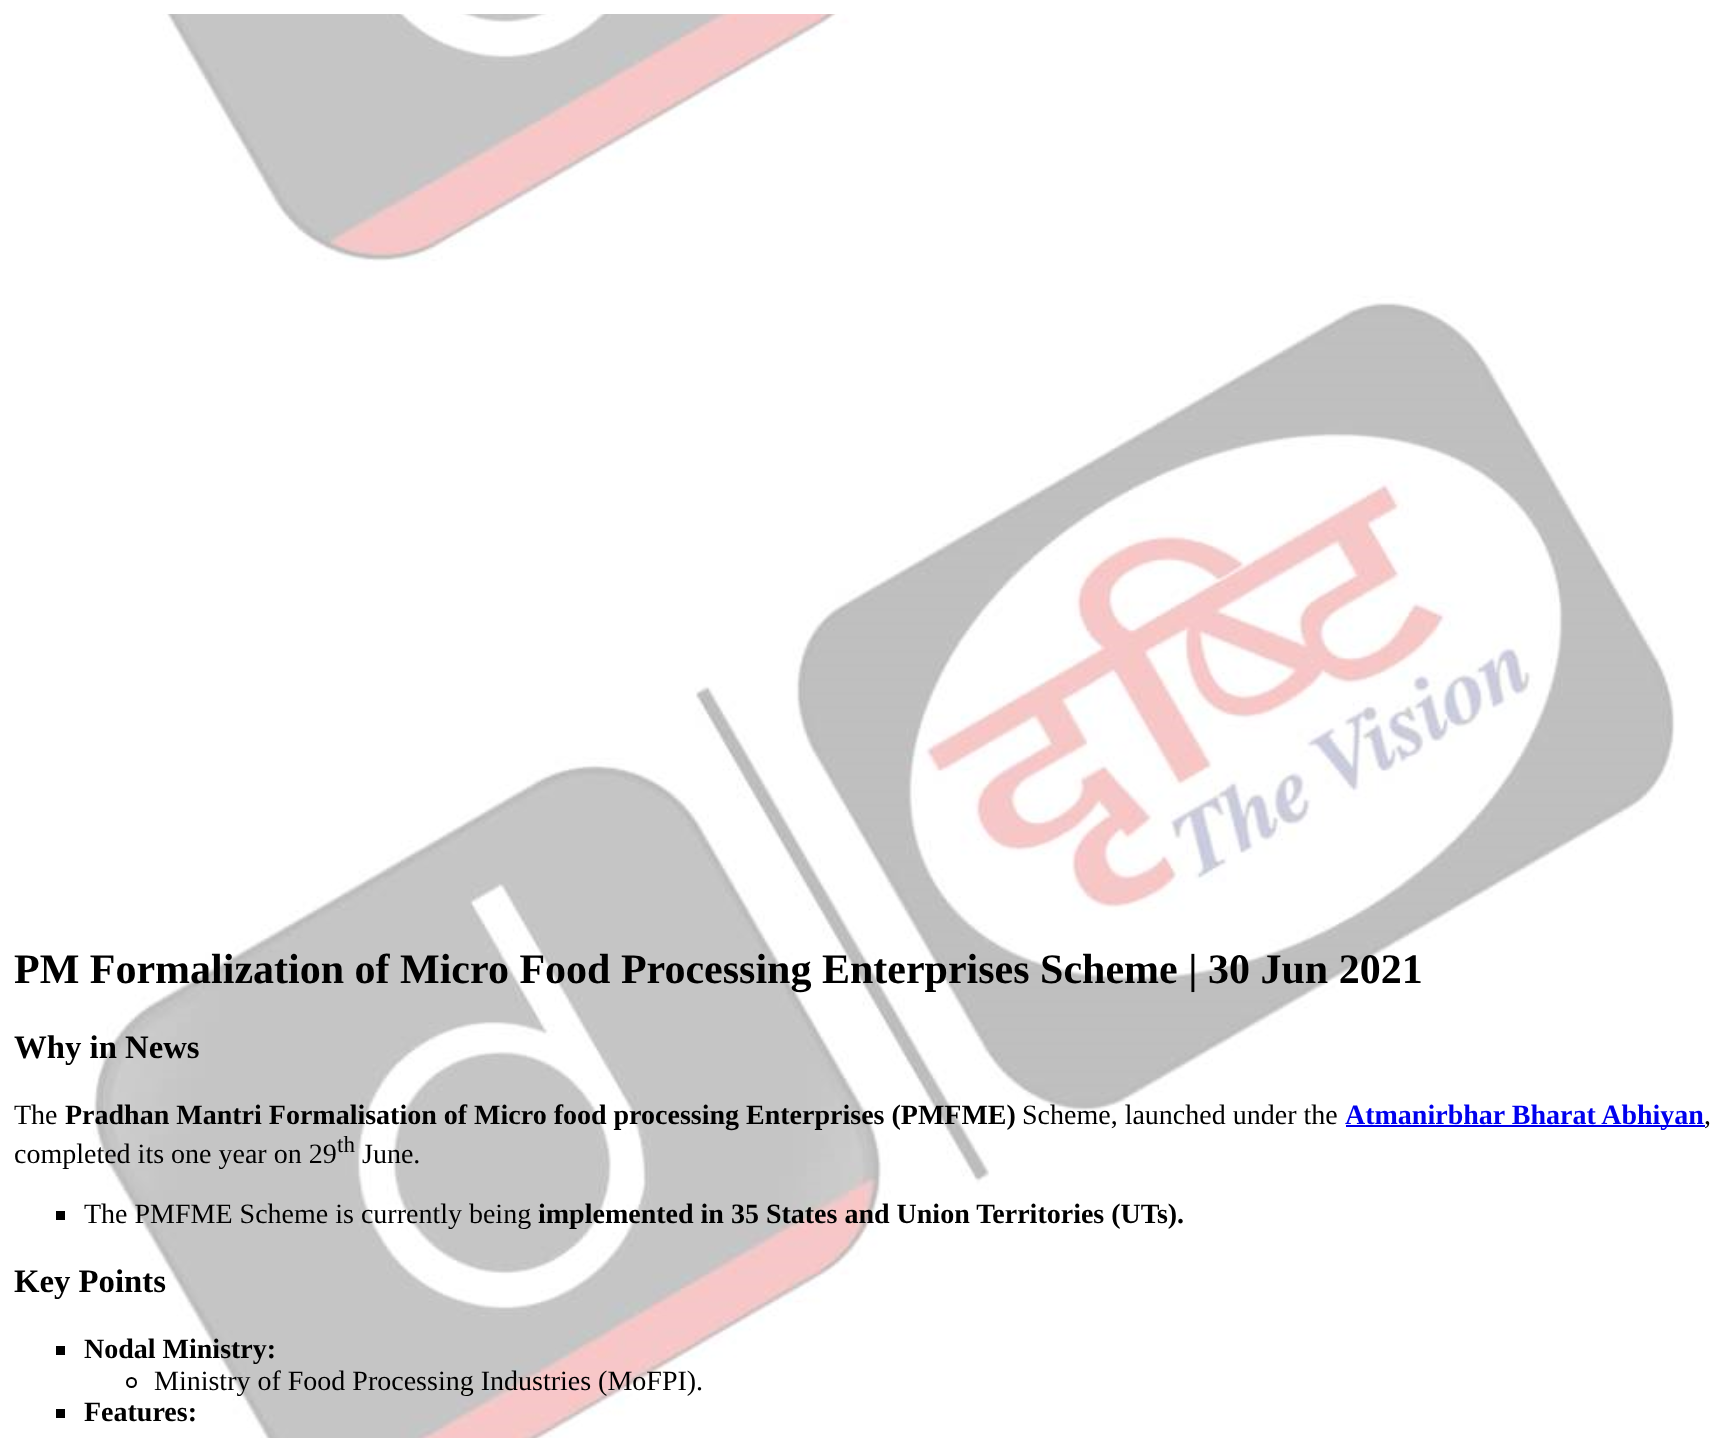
(async () => {
  const canvas = document.querySelector("canvas");
  canvas.width = 1729;
  canvas.height = 1438;
  const ctx = canvas.getContext("2d");
  ctx.miterLimit = 4;
  ctx.fontKerning = "normal";
  async function loadImage(src) {
    const img = new Image();
    img.src = src;
    await img.decode();
    return img;
  }

  ctx.fillStyle = "#ffffff";
  ctx.fillRect(0, 0, 1729, 1438);
  ctx.drawImage(await loadImage("img/1.png"), 93, 14, 1582, 1424);
  for (const [x, y, w, h, color] of [
    [1346, 1125, 359, 2, "#0000ee"],
    [56, 1211, 9, 9, "#000000"],
    [56, 1346, 9, 9, "#000000"],
  ]) {
    ctx.fillStyle = color;
    ctx.fillRect(x, y, w, h);
  }
  ctx.beginPath();
  ctx.arc(131.5, 1382.5, 4.5, 0, Math.PI * 2);
  ctx.strokeStyle = "#000000";
  ctx.lineWidth = 2;
  ctx.stroke();
  ctx.fillRect(56, 1409, 9, 9);
  ctx.font = "bold 42px Liberation Serif";
  ctx.fillText("PM Formalization of Micro Food Processing Enterprises Scheme | 30 Jun 2021", 14, 983);
  ctx.font = "bold 32.75px Liberation Serif";
  ctx.fillText("Why in News", 14, 1058);
  ctx.font = "28px Liberation Serif";
  ctx.fillText("The", 14, 1124);
  ctx.font = "bold 28px Liberation Serif";
  ctx.fillText("Pradhan Mantri Formalisation of Micro food processing Enterprises (PMFME)", 65, 1124);
  ctx.font = "28px Liberation Serif";
  ctx.fillText("Scheme, launched under the", 1022, 1124);
  ctx.font = "bold 28px Liberation Serif";
  ctx.fillStyle = "#0000ee";
  ctx.fillText("Atmanirbhar Bharat Abhiyan", 1345, 1124);
  ctx.font = "28px Liberation Serif";
  ctx.fillStyle = "#000000";
  ctx.fillText(",", 1704, 1124);
  ctx.fillText("completed its one year on 29", 14, 1163);
  ctx.font = "23px Liberation Serif";
  ctx.fillText("th", 337, 1152);
  ctx.font = "28px Liberation Serif";
  ctx.fillText("June.", 362, 1163);
  ctx.fillText("The PMFME Scheme is currently being", 84, 1223);
  ctx.font = "bold 28px Liberation Serif";
  ctx.fillText("implemented in 35 States and Union Territories (UTs).", 538, 1223);
  ctx.font = "bold 32.75px Liberation Serif";
  ctx.fillText("Key Points", 14, 1292);
  ctx.font = "bold 28px Liberation Serif";
  ctx.fillText("Nodal Ministry:", 84, 1358);
  ctx.font = "28px Liberation Serif";
  ctx.fillText("Ministry of Food Processing Industries (MoFPI).", 154, 1390);
  ctx.font = "bold 28px Liberation Serif";
  ctx.fillText("Features:", 84, 1421);
})();
